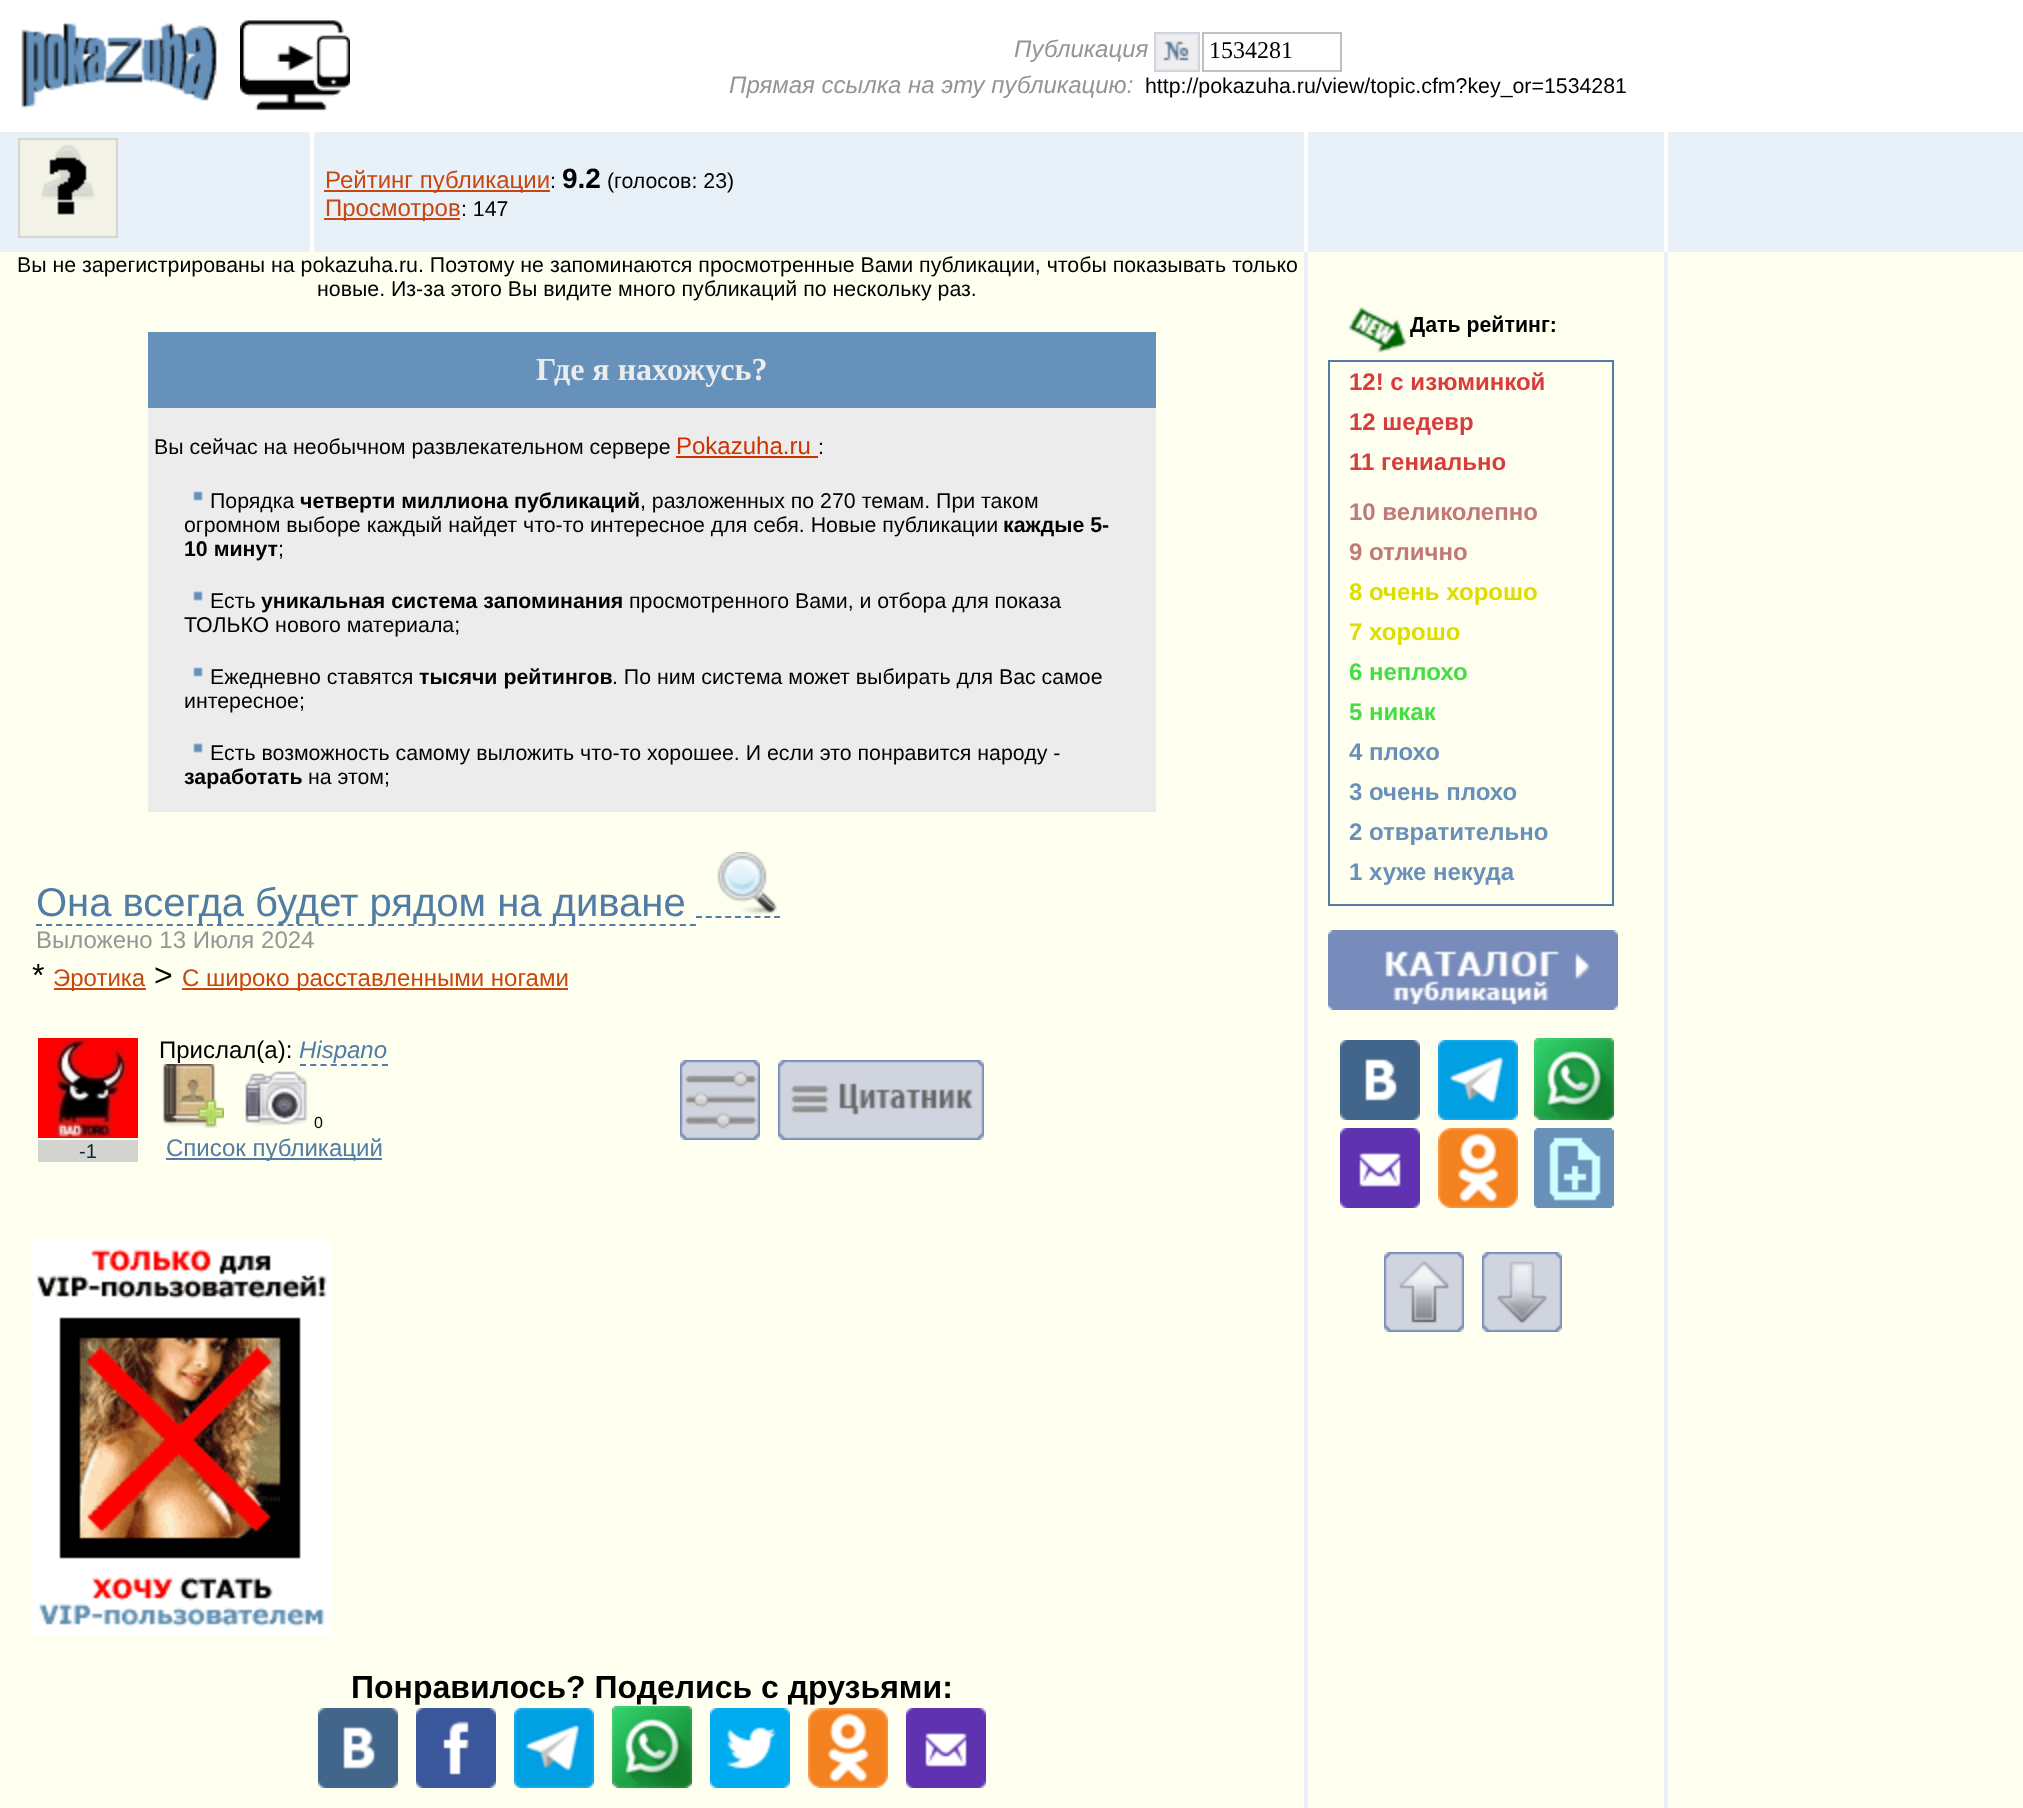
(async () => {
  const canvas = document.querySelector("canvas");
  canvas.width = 2023;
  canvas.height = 1808;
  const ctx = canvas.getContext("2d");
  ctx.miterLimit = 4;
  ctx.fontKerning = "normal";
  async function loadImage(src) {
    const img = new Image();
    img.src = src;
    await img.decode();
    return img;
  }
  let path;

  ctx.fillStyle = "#ffffff";
  ctx.fillRect(0, 0, 2023, 1808);
  ctx.drawImage(await loadImage("img/1.png"), 21, 23, 196, 86);
  ctx.drawImage(await loadImage("img/2.png"), 240, 20, 110, 91);
  ctx.drawImage(await loadImage("img/3.png"), 1154, 32, 46, 40);
  ctx.strokeStyle = "#c0c0c0";
  ctx.lineWidth = 2;
  ctx.strokeRect(1203, 33, 138, 38);
  ctx.fillStyle = "#e8f0f8";
  ctx.fillRect(0, 132, 310, 120);
  ctx.drawImage(await loadImage("img/4.png"), 18, 138, 100, 100);
  for (const [x, y, w, h, color] of [
    [314, 132, 990, 120, "#e8f0f8"],
    [324, 190, 226, 2, "#c74710"],
    [324, 218, 136, 2, "#c74710"],
    [1308, 132, 356, 120, "#e8f0f8"],
    [1668, 132, 355, 120, "#e8f0f8"],
    [0, 252, 1304, 1556, "#fffff0"],
    [1304, 252, 4, 1556, "#e8f0f8"],
    [1308, 252, 356, 1556, "#fffff0"],
    [1664, 252, 4, 1556, "#e8f0f8"],
    [1668, 252, 355, 1556, "#fffff0"],
    [148, 332, 1008, 76, "#6691bb"],
    [148, 408, 1008, 404, "#ececec"],
    [676, 456, 142, 2, "#cc3300"],
  ]) {
    ctx.fillStyle = color;
    ctx.fillRect(x, y, w, h);
  }
  ctx.drawImage(await loadImage("img/5.png"), 193, 491, 10, 10);
  ctx.drawImage(await loadImage("img/5.png"), 193, 591, 10, 10);
  ctx.drawImage(await loadImage("img/5.png"), 193, 667, 10, 10);
  ctx.drawImage(await loadImage("img/5.png"), 193, 743, 10, 10);
  path = new Path2D("M36 925H696");
  ctx.strokeStyle = "#507ca6";
  ctx.setLineDash([6, 4.06]);
  ctx.stroke(path);
  path = new Path2D("M696 917H780");
  ctx.setLineDash([6, 3.76]);
  ctx.stroke(path);
  ctx.drawImage(await loadImage("img/6.png"), 717, 852, 60, 62);
  ctx.fillStyle = "#c74710";
  ctx.fillRect(54, 988, 92, 2);
  ctx.fillRect(182, 988, 386, 2);
  path = new Path2D("M300 1065H388");
  ctx.setLineDash([6, 4.24]);
  ctx.stroke(path);
  ctx.drawImage(await loadImage("img/7.png"), 162, 1064, 62, 64);
  ctx.drawImage(await loadImage("img/8.png"), 245, 1071, 63, 55);
  ctx.fillStyle = "#507ca6";
  ctx.fillRect(166, 1158, 216, 2);
  ctx.drawImage(await loadImage("img/9.png"), 680, 1060, 80, 80);
  ctx.drawImage(await loadImage("img/10.png"), 778, 1060, 206, 80);
  ctx.drawImage(await loadImage("img/11.png"), 38, 1038, 100, 100);
  ctx.fillStyle = "#d3d3cf";
  ctx.fillRect(38, 1140, 100, 22);
  ctx.drawImage(await loadImage("img/12.png"), 32, 1240, 300, 396);
  ctx.drawImage(await loadImage("img/13.png"), 318, 1708, 80, 80);
  ctx.drawImage(await loadImage("img/14.png"), 416, 1708, 80, 80);
  ctx.drawImage(await loadImage("img/15.png"), 514, 1708, 80, 80);
  ctx.drawImage(await loadImage("img/16.png"), 612, 1706, 80, 82);
  ctx.drawImage(await loadImage("img/17.png"), 710, 1708, 80, 80);
  ctx.drawImage(await loadImage("img/18.png"), 808, 1708, 80, 80);
  ctx.drawImage(await loadImage("img/19.png"), 906, 1708, 80, 80);
  ctx.drawImage(await loadImage("img/20.png"), 1348, 307, 207, 46);
  ctx.setLineDash([]);
  ctx.strokeRect(1329, 361, 284, 544);
  ctx.drawImage(await loadImage("img/21.png"), 1328, 930, 290, 80);
  ctx.drawImage(await loadImage("img/13.png"), 1340, 1040, 80, 80);
  ctx.drawImage(await loadImage("img/15.png"), 1438, 1040, 80, 80);
  ctx.drawImage(await loadImage("img/16.png"), 1534, 1038, 80, 82);
  ctx.drawImage(await loadImage("img/19.png"), 1340, 1128, 80, 80);
  ctx.drawImage(await loadImage("img/18.png"), 1438, 1128, 80, 80);
  ctx.drawImage(await loadImage("img/22.png"), 1534, 1128, 80, 80);
  ctx.drawImage(await loadImage("img/23.png"), 1384, 1252, 80, 80);
  ctx.drawImage(await loadImage("img/24.png"), 1482, 1252, 80, 80);
  ctx.font = "italic 24px Liberation Sans";
  ctx.fillStyle = "#959595";
  ctx.fillText("Публикация", 1014, 57);
  ctx.font = "24px Liberation Serif";
  ctx.fillStyle = "#000000";
  ctx.fillText("1534281", 1209, 58);
  ctx.font = "italic 24px Liberation Sans";
  ctx.fillStyle = "#959595";
  ctx.fillText("Прямая ссылка на эту публикацию:", 729, 93);
  ctx.font = "21.33px Liberation Sans";
  ctx.fillStyle = "#000000";
  ctx.fillText("http://pokazuha.ru/view/topic.cfm?key_or=1534281", 1145, 93);
  ctx.font = "24px Liberation Sans";
  ctx.fillStyle = "#c74710";
  ctx.fillText("Рейтинг публикации", 325, 188);
  ctx.font = "21.33px Liberation Sans";
  ctx.fillStyle = "#000000";
  ctx.fillText(":", 550, 188);
  ctx.font = "bold 28px Liberation Sans";
  ctx.fillText("9.2", 562, 188);
  ctx.font = "21.33px Liberation Sans";
  ctx.fillText("(голосов: 23)", 607, 188);
  ctx.font = "24px Liberation Sans";
  ctx.fillStyle = "#c74710";
  ctx.fillText("Просмотров", 325, 216);
  ctx.font = "21.33px Liberation Sans";
  ctx.fillStyle = "#000000";
  for (const [text, x, y] of [
    [": 147", 461, 216],
    ["Вы не зарегистрированы на pokazuha.ru. Поэтому не запоминаются просмотренные Вами публикации, чтобы показывать только", 17, 272],
    ["новые. Из-за этого Вы видите много публикаций по нескольку раз.", 317, 296],
  ]) {
    ctx.fillText(text, x, y);
  }
  ctx.font = "bold 32px Liberation Serif";
  ctx.fillStyle = "#ececec";
  ctx.fillText("Где я нахожусь?", 536, 380);
  ctx.font = "21.33px Liberation Sans";
  ctx.fillStyle = "#000000";
  ctx.fillText("Вы сейчас на необычном развлекательном сервере", 154, 454);
  ctx.font = "24px Liberation Sans";
  ctx.fillStyle = "#cc3300";
  ctx.fillText("Pokazuha.ru", 676, 454);
  ctx.font = "21.33px Liberation Sans";
  ctx.fillStyle = "#000000";
  ctx.fillText(":", 818, 454);
  ctx.fillText("Порядка", 210, 508);
  ctx.font = "bold 21.33px Liberation Sans";
  ctx.fillText("четверти миллиона публикаций", 300, 508);
  ctx.font = "21.33px Liberation Sans";
  ctx.fillText(", разложенных по 270 темам. При таком", 640, 508);
  ctx.fillText("огромном выборе каждый найдет что-то интересное для себя. Новые публикации", 184, 532);
  ctx.font = "bold 21.33px Liberation Sans";
  ctx.fillText("каждые 5-", 1003, 532);
  ctx.fillText("10 минут", 184, 556);
  ctx.font = "21.33px Liberation Sans";
  ctx.fillText(";", 278, 556);
  ctx.fillText("Есть", 210, 608);
  ctx.font = "bold 21.33px Liberation Sans";
  ctx.fillText("уникальная система запоминания", 261, 608);
  ctx.font = "21.33px Liberation Sans";
  for (const [text, x, y] of [
    ["просмотренного Вами, и отбора для показа", 629, 608],
    ["ТОЛЬКО нового материала;", 184, 632],
    ["Ежедневно ставятся", 210, 684],
  ]) {
    ctx.fillText(text, x, y);
  }
  ctx.font = "bold 21.33px Liberation Sans";
  ctx.fillText("тысячи рейтингов", 419, 684);
  ctx.font = "21.33px Liberation Sans";
  for (const [text, x, y] of [
    [". По ним система может выбирать для Вас самое", 612, 684],
    ["интересное;", 184, 708],
    ["Есть возможность самому выложить что-то хорошее. И если это понравится народу -", 210, 760],
  ]) {
    ctx.fillText(text, x, y);
  }
  ctx.font = "bold 21.33px Liberation Sans";
  ctx.fillText("заработать", 184, 784);
  ctx.font = "21.33px Liberation Sans";
  ctx.fillText("на этом;", 308, 784);
  ctx.font = "40px Liberation Sans";
  ctx.fillStyle = "#507ca6";
  ctx.fillText("Она всегда будет рядом на диване", 36, 916);
  ctx.font = "24px Liberation Sans";
  ctx.fillStyle = "#959595";
  ctx.fillText("Выложено 13 Июля 2024", 36, 948);
  ctx.font = "32px Liberation Sans";
  ctx.fillStyle = "#000000";
  ctx.fillText("*", 32, 986);
  ctx.font = "24px Liberation Sans";
  ctx.fillStyle = "#c74710";
  ctx.fillText("Эротика", 53, 986);
  ctx.font = "32px Liberation Sans";
  ctx.fillStyle = "#000000";
  ctx.fillText(">", 154, 986);
  ctx.font = "24px Liberation Sans";
  ctx.fillStyle = "#c74710";
  ctx.fillText("С широко расставленными ногами", 182, 986);
  ctx.fillStyle = "#000000";
  ctx.fillText("Прислал(a):", 159, 1058);
  ctx.font = "italic 24px Liberation Sans";
  ctx.fillStyle = "#507ca6";
  ctx.fillText("Hispano", 299, 1058);
  ctx.font = "16px Liberation Sans";
  ctx.fillStyle = "#000000";
  ctx.fillText("0", 314, 1128);
  ctx.font = "24px Liberation Sans";
  ctx.fillStyle = "#507ca6";
  ctx.fillText("Список публикаций", 166, 1156);
  ctx.font = "20px Liberation Sans";
  ctx.fillStyle = "#0e2539";
  ctx.fillText("-1", 79, 1158);
  ctx.font = "bold 32px Liberation Sans";
  ctx.fillStyle = "#000000";
  ctx.fillText("Понравилось? Поделись с друзьями:", 351, 1698);
  ctx.font = "bold 24px Liberation Sans";
  ctx.fillStyle = "#d83c3c";
  for (const [text, x, y] of [
    ["12! с изюминкой", 1349, 390],
    ["12 шедевр", 1349, 430],
    ["11 гениально", 1349, 470],
  ]) {
    ctx.fillText(text, x, y);
  }
  ctx.fillStyle = "#c07878";
  ctx.fillText("10 великолепно", 1349, 520);
  ctx.fillText("9 отлично", 1349, 560);
  ctx.fillStyle = "#dddd00";
  ctx.fillText("8 очень хорошо", 1349, 600);
  ctx.fillText("7 хорошо", 1349, 640);
  ctx.fillStyle = "#44dd44";
  ctx.fillText("6 неплохо", 1349, 680);
  ctx.fillText("5 никак", 1349, 720);
  ctx.fillStyle = "#6890b8";
  for (const [text, x, y] of [
    ["4 плохо", 1349, 760],
    ["3 очень плохо", 1349, 800],
    ["2 отвратительно", 1349, 840],
    ["1 хуже некуда", 1349, 880],
  ]) {
    ctx.fillText(text, x, y);
  }
})();
